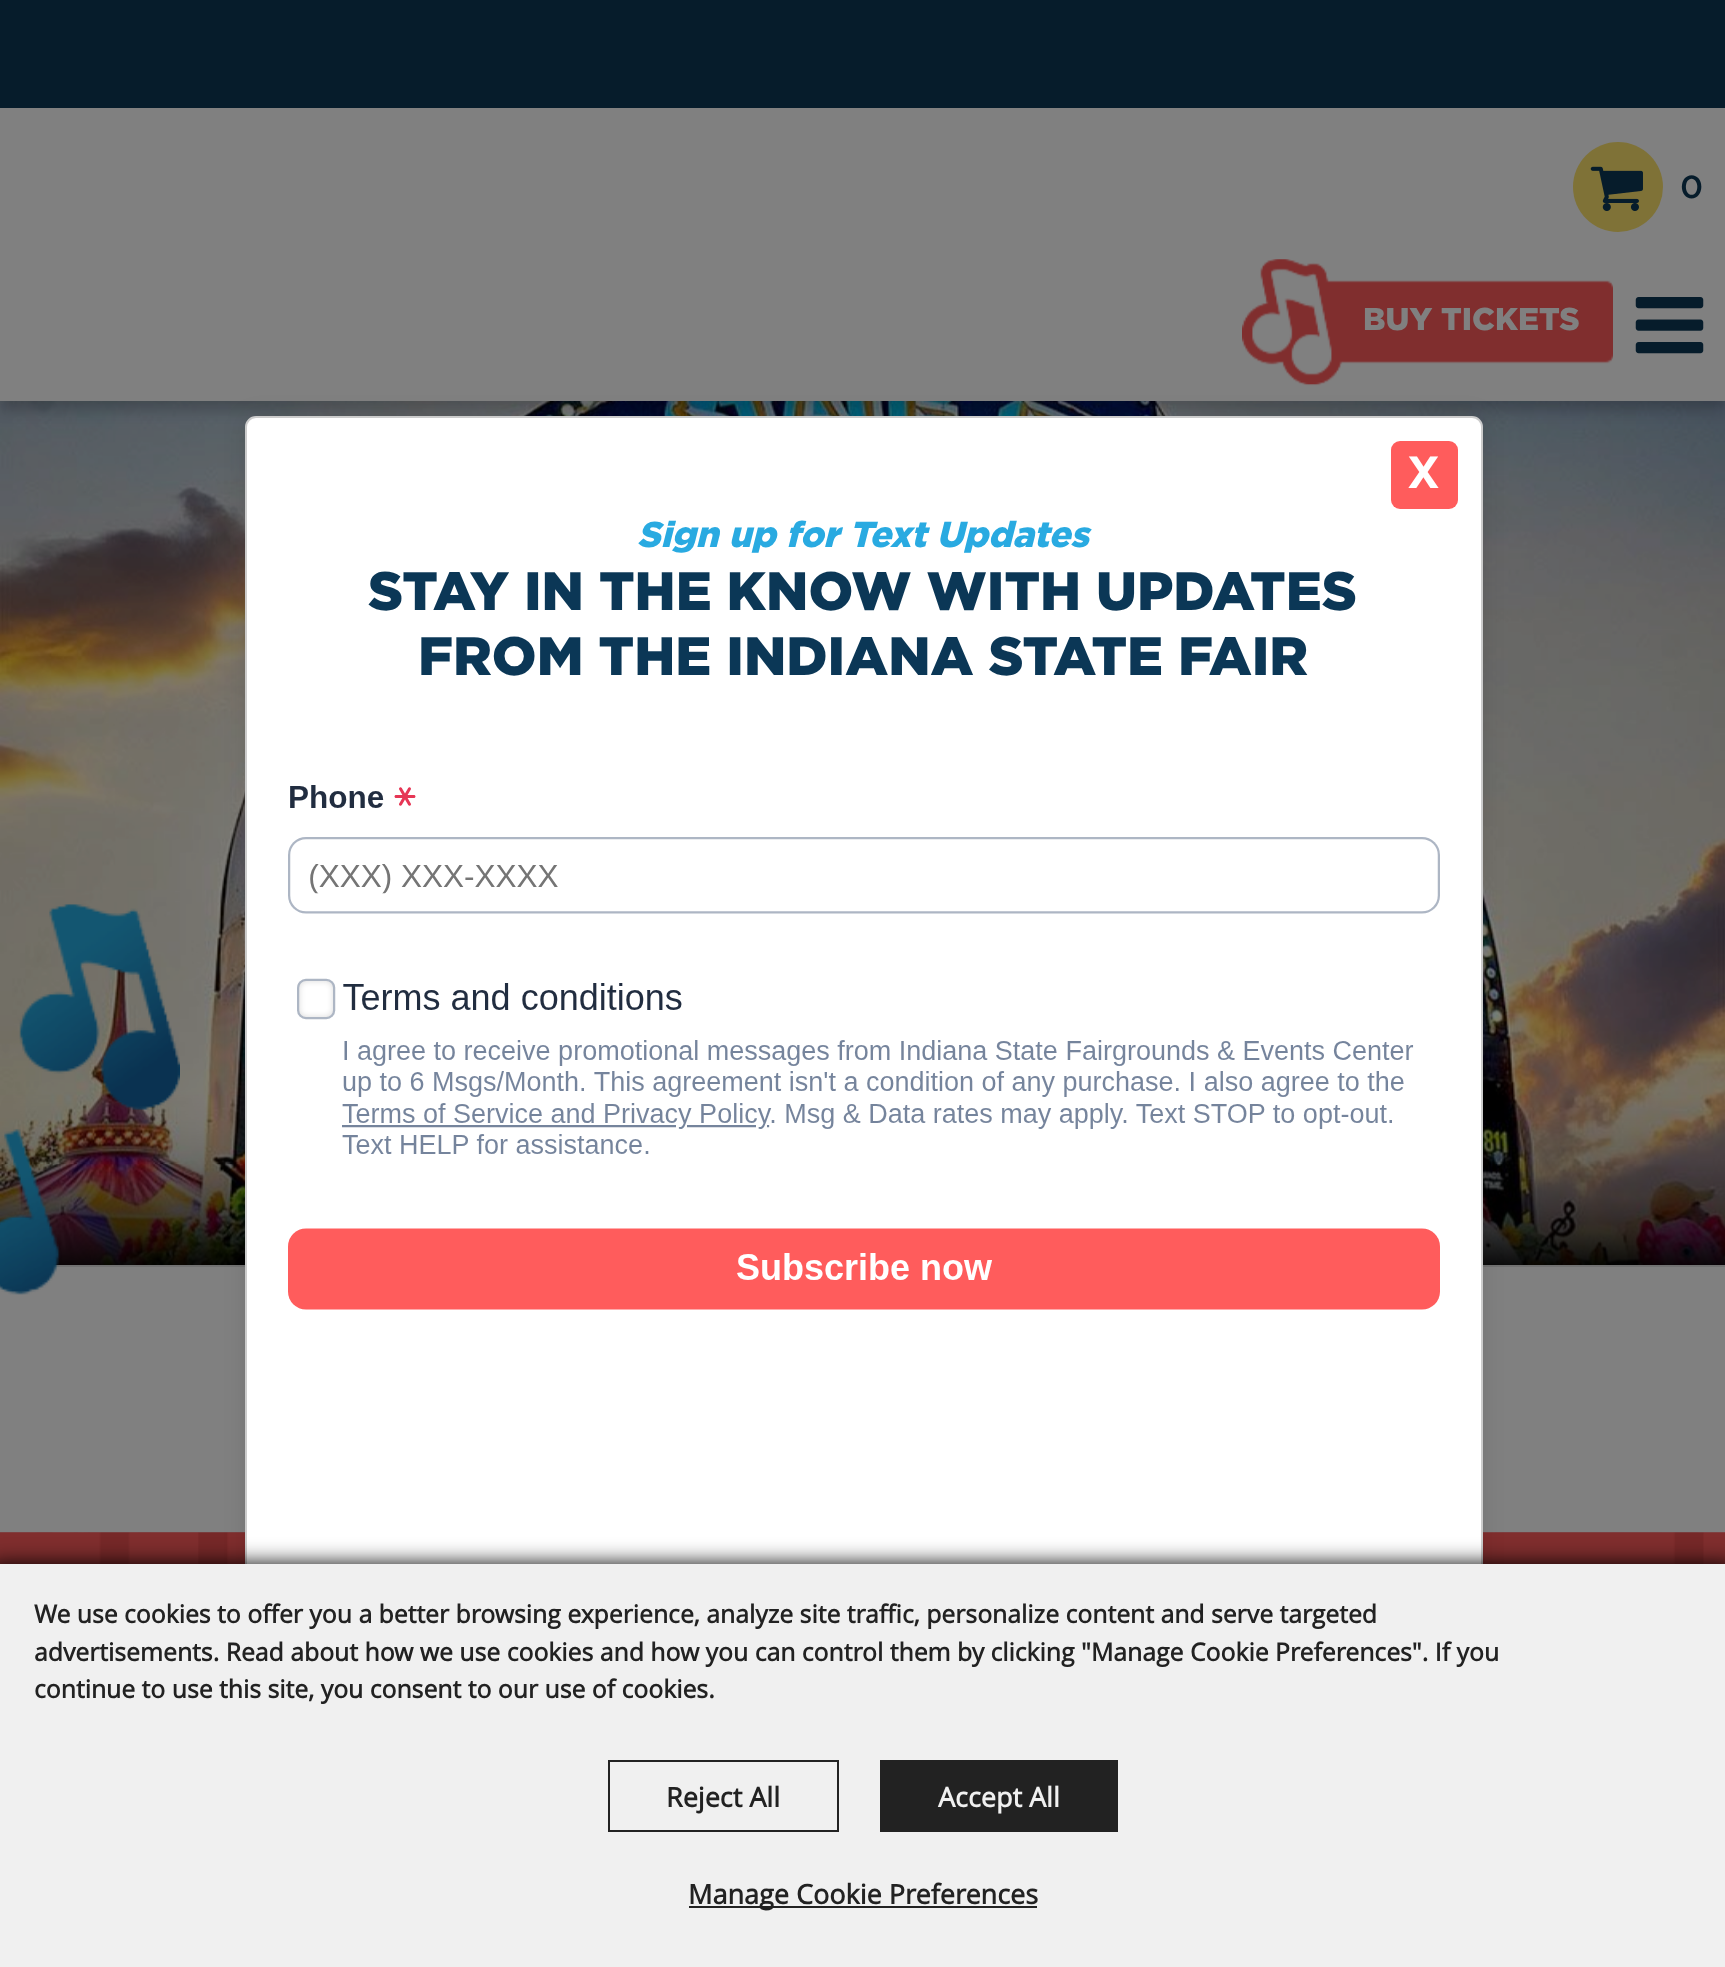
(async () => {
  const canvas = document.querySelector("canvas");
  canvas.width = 1725;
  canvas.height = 1967;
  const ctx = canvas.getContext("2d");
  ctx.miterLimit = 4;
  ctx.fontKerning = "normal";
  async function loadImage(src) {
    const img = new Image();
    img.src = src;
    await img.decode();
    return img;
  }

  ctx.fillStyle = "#802e2e";
  ctx.fillRect(0, 0, 1725, 1967);
  ctx.fillStyle = "#808080";
  ctx.fillRect(0, 1265, 1725, 267);
  ctx.drawImage(await loadImage("img/5.png"), 0, 401, 1725, 866);
  ctx.fillStyle = "rgba(0, 0, 0, 0.2)";
  ctx.filter = "blur(7px)";
  ctx.beginPath();
  ctx.rect(0, 9, 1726, 401);
  ctx.fill();
  ctx.filter = "none";
  ctx.fillStyle = "#808080";
  ctx.fillRect(0, 108, 1725, 293);
  ctx.fillStyle = "#061c2b";
  ctx.fillRect(0, 0, 1725, 108);
  ctx.fillStyle = "#7f7237";
  ctx.beginPath();
  ctx.arc(1618, 187, 45, 0, Math.PI * 2);
  ctx.fill();
  ctx.drawImage(await loadImage("img/1.png"), 1590, 166, 53, 45);
  ctx.drawImage(await loadImage("img/2.png"), 1242, 259, 371, 127);
  ctx.drawImage(await loadImage("img/3.png"), 1635, 297, 69, 57);
  ctx.drawImage(await loadImage("img/7.png"), 0, 1532, 1704, 32);
  ctx.drawImage(await loadImage("img/4.png"), 0, 1532, 1725, 1);
  ctx.drawImage(await loadImage("img/6.png"), 0, 904, 180, 391);
  ctx.fillStyle = "rgba(0, 0, 0, 0.1)";
  ctx.filter = "blur(11px)";
  ctx.beginPath();
  ctx.roundRect(245, 416, 1238, 1170, 11);
  ctx.fill();
  ctx.filter = "none";
  ctx.fillStyle = "#ffffff";
  ctx.beginPath();
  ctx.roundRect(246, 417, 1236, 1168, 10);
  ctx.fill();
  ctx.strokeStyle = "#cccccc";
  ctx.lineWidth = 2;
  ctx.stroke();
  ctx.fillStyle = "#ff5c5c";
  ctx.beginPath();
  ctx.roundRect(1391, 441, 67, 68, 9);
  ctx.fill();
  ctx.drawImage(await loadImage("img/8.png"), 288, 785, 1152, 525);
  ctx.fillStyle = "#000000";
  ctx.filter = "blur(11px)";
  ctx.beginPath();
  ctx.rect(-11, 1564, 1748, 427);
  ctx.fill();
  ctx.filter = "none";
  ctx.fillStyle = "#f0f0f0";
  ctx.fillRect(0, 1564, 1725, 403);
  ctx.strokeStyle = "#222222";
  ctx.strokeRect(609, 1761, 229, 70);
  ctx.fillStyle = "#222222";
  ctx.fillRect(880, 1760, 238, 72);
  ctx.fillRect(689, 1906, 348, 2);
  ctx.font = "500 32px Gotham";
  ctx.fillStyle = "#061c2b";
  ctx.fillText("0", 1680, 198);
  ctx.font = "900 31.5px Gotham";
  ctx.fillStyle = "#808080";
  ctx.fillText("BUY TICKETS", 1363, 330);
  ctx.font = "bold 45px Gotham";
  ctx.fillStyle = "#ffffff";
  ctx.fillText("X", 1407, 488);
  ctx.font = "italic 900 36px Gotham";
  ctx.fillStyle = "#29aae1";
  ctx.fillText("Sign up for Text Updates", 637, 547);
  ctx.font = "900 54px Gotham";
  ctx.fillStyle = "#0b3756";
  ctx.fillText("STAY IN THE KNOW WITH UPDATES", 368, 610);
  ctx.fillText("FROM THE INDIANA STATE FAIR", 418, 675);
  ctx.font = "bold 24.75px Open Sans";
  ctx.fillStyle = "#222222";
  for (const [text, x, y] of [
    ["We use cookies to offer you a better browsing experience, analyze site traffic, personalize content and serve targeted", 34, 1623],
    ["advertisements. Read about how we use cookies and how you can control them by clicking \"Manage Cookie Preferences\". If you", 34, 1661],
    ["continue to use this site, you consent to our use of cookies.", 34, 1698],
  ]) {
    ctx.fillText(text, x, y);
  }
  ctx.font = "bold 27px Open Sans";
  ctx.fillText("Reject All", 666, 1807);
  ctx.fillStyle = "#f0f0f0";
  ctx.fillText("Accept All", 938, 1807);
  ctx.fillStyle = "#222222";
  ctx.fillText("Manage Cookie Preferences", 688, 1904);
})();
